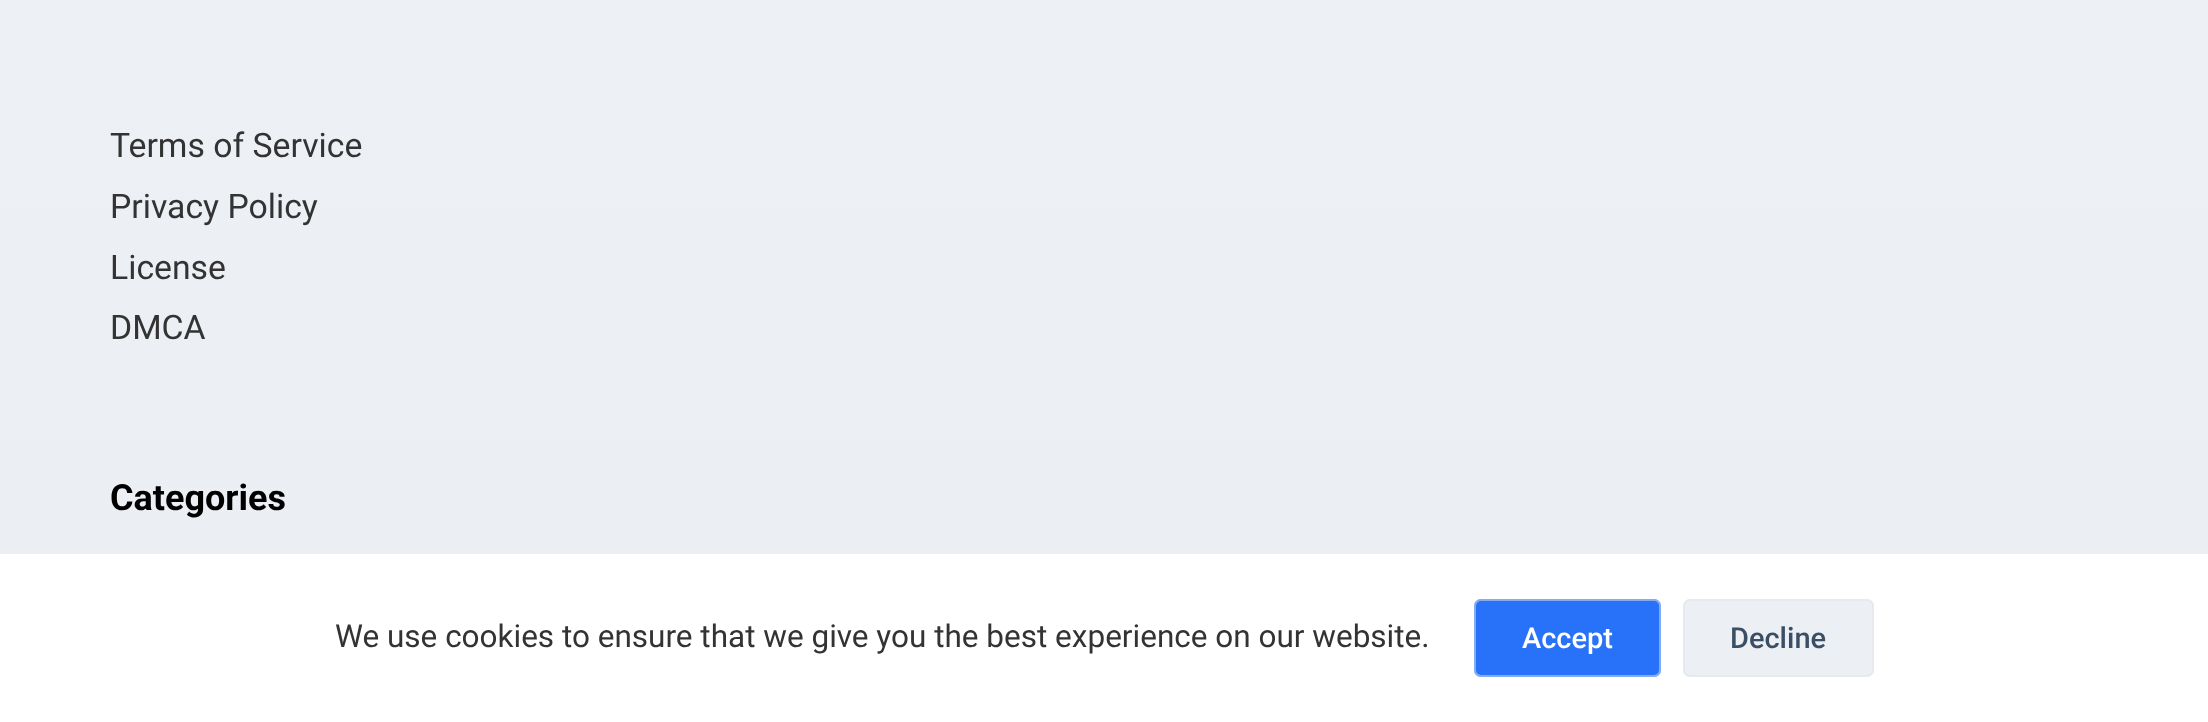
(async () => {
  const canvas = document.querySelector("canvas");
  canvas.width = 2208;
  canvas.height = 722;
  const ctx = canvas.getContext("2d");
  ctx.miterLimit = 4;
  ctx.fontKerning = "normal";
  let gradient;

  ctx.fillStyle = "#ffffff";
  ctx.fillRect(0, 0, 2208, 722);
  gradient = ctx.createLinearGradient(1105, 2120, 1105, -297);
  gradient.addColorStop(0, "#e6e9f0");
  gradient.addColorStop(1, "#eef1f5");
  ctx.fillStyle = gradient;
  ctx.fillRect(0, 0, 2208, 554);
  ctx.fillStyle = "#2872fa";
  ctx.beginPath();
  ctx.roundRect(1474, 599, 187, 78, 7);
  ctx.fill();
  ctx.beginPath();
  ctx.roundRect(1475, 600, 185, 76, 6);
  ctx.strokeStyle = "rgba(224, 229, 235, 0.5)";
  ctx.lineWidth = 2;
  ctx.stroke();
  ctx.fillStyle = "#eceff3";
  ctx.beginPath();
  ctx.roundRect(1683, 599, 191, 78, 7);
  ctx.fill();
  ctx.beginPath();
  ctx.roundRect(1684, 600, 189, 76, 6);
  ctx.stroke();
  ctx.font = "33.75px Roboto";
  ctx.fillStyle = "#333333";
  for (const [text, x, y] of [
    ["Terms of Service", 110, 157],
    ["Privacy Policy", 110, 218],
    ["License", 110, 279],
    ["DMCA", 110, 339],
  ]) {
    ctx.fillText(text, x, y);
  }
  ctx.font = "bold 36px Roboto";
  ctx.fillStyle = "#000000";
  ctx.fillText("Categories", 110, 510);
  ctx.font = "31.5px Roboto";
  ctx.fillStyle = "#333333";
  ctx.fillText("We use cookies to ensure that we give you the best experience on our website.", 335, 647);
  ctx.font = "500 29px Roboto";
  ctx.fillStyle = "#ffffff";
  ctx.fillText("Accept", 1522, 648);
  ctx.fillStyle = "#3a4f66";
  ctx.fillText("Decline", 1730, 648);
})();
